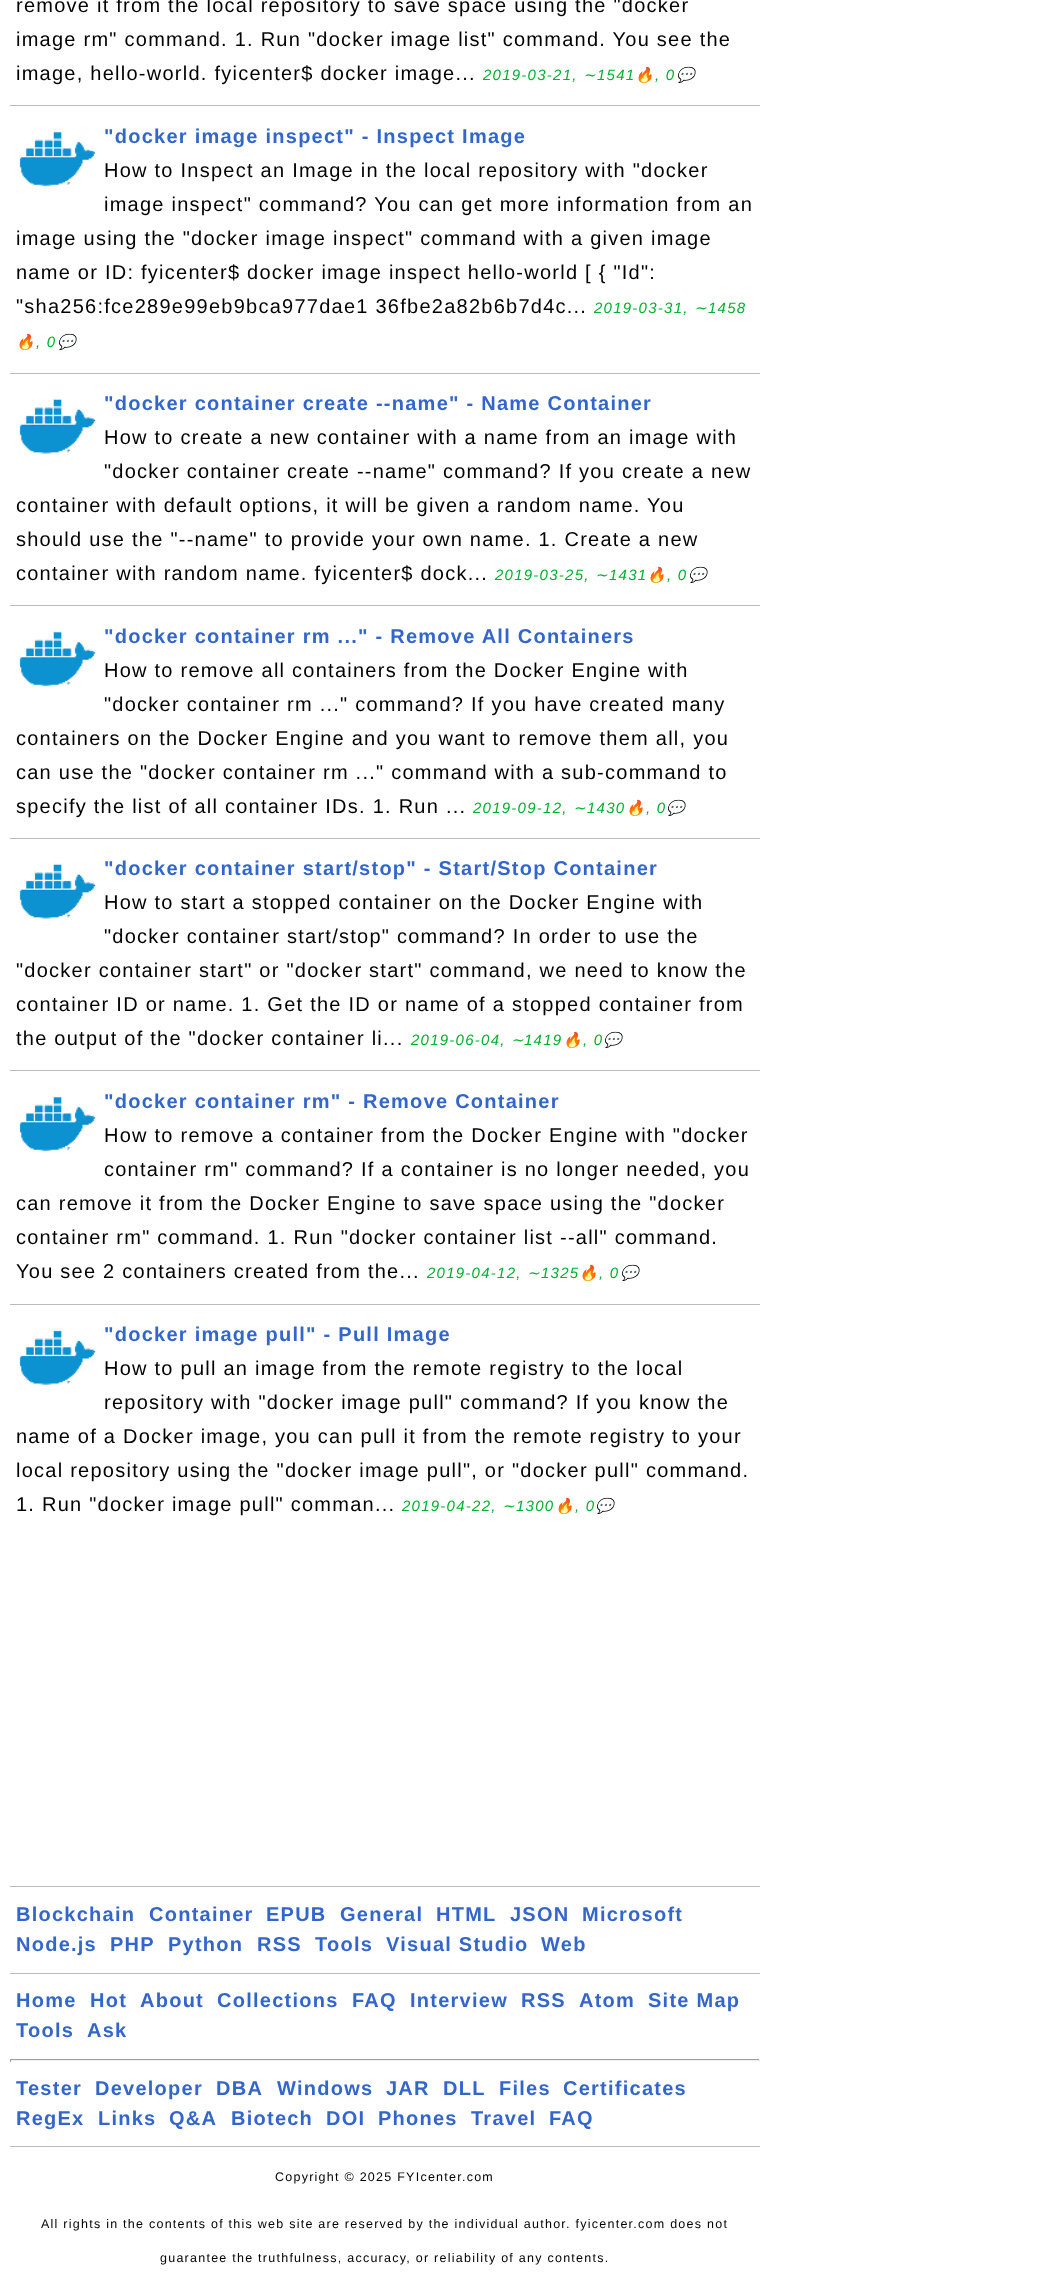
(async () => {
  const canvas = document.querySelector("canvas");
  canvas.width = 1038;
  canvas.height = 2287;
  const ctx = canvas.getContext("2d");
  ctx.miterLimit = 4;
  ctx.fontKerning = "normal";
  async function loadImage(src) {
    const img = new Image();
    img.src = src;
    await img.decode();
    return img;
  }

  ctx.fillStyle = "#ffffff";
  ctx.fillRect(0, 0, 1038, 2287);
  ctx.fillStyle = "#bbbbbb";
  ctx.fillRect(10, 105, 750, 1);
  ctx.drawImage(await loadImage("img/1.png"), 19, 130, 77, 57);
  ctx.fillRect(10, 373, 750, 1);
  ctx.drawImage(await loadImage("img/2.png"), 19, 397, 77, 58);
  ctx.fillRect(10, 605, 750, 1);
  ctx.drawImage(await loadImage("img/3.png"), 19, 630, 77, 57);
  ctx.fillRect(10, 838, 750, 1);
  ctx.drawImage(await loadImage("img/2.png"), 19, 862, 77, 58);
  ctx.fillRect(10, 1070, 750, 1);
  ctx.drawImage(await loadImage("img/1.png"), 19, 1095, 77, 57);
  ctx.fillRect(10, 1304, 750, 1);
  ctx.drawImage(await loadImage("img/4.png"), 19, 1328, 77, 58);
  for (const [x, y, w, h, color] of [
    [10, 1886, 750, 1, "#bbbbbb"],
    [10, 1973, 750, 1, "#bbbbbb"],
    [10, 2059, 750, 1, "#9f9f9f"],
    [759, 2059, 1, 3, "#eeeeee"],
    [10, 2060, 750, 1, "#eeeeee"],
    [10, 2059, 1, 3, "#9f9f9f"],
    [10, 2146, 750, 1, "#bbbbbb"],
  ]) {
    ctx.fillStyle = color;
    ctx.fillRect(x, y, w, h);
  }
  ctx.letterSpacing = "1.25px";
  ctx.font = "20px Liberation Sans";
  ctx.fillStyle = "#000000";
  for (const [text, x, y] of [
    ["remove it from the local repository to save space using the \"docker", 16, 12],
    ["image rm\" command. 1. Run \"docker image list\" command. You see the", 16, 46],
    ["image, hello-world. fyicenter$ docker image...", 16, 80],
  ]) {
    ctx.fillText(text, x, y);
  }
  ctx.font = "italic 15px Liberation Sans";
  ctx.fillStyle = "#00b030";
  ctx.fillText("2019-03-21,", 483, 80);
  ctx.font = "italic 15px DejaVu Sans";
  ctx.fillText("∼", 583, 80);
  ctx.font = "italic 15px Liberation Sans";
  ctx.fillText("1541", 597, 80);
  ctx.font = "italic 15px Noto Color Emoji";
  ctx.fillText("🔥", 635, 80);
  ctx.font = "italic 15px Liberation Sans";
  ctx.fillText(", 0", 655, 80);
  ctx.font = "italic 15px Noto Color Emoji";
  ctx.fillText("💬", 676, 80);
  ctx.font = "bold 20px Liberation Sans";
  ctx.fillStyle = "#3366cc";
  ctx.fillText("\"docker image inspect\" - Inspect Image", 104, 143);
  ctx.font = "20px Liberation Sans";
  ctx.fillStyle = "#000000";
  for (const [text, x, y] of [
    ["How to Inspect an Image in the local repository with \"docker", 104, 177],
    ["image inspect\" command? You can get more information from an", 104, 211],
    ["image using the \"docker image inspect\" command with a given image", 16, 245],
    ["name or ID: fyicenter$ docker image inspect hello-world [ { \"Id\":", 16, 279],
    ["\"sha256:fce289e99eb9bca977dae1 36fbe2a82b6b7d4c...", 16, 313],
  ]) {
    ctx.fillText(text, x, y);
  }
  ctx.font = "italic 15px Liberation Sans";
  ctx.fillStyle = "#00b030";
  ctx.fillText("2019-03-31,", 594, 313);
  ctx.font = "italic 15px DejaVu Sans";
  ctx.fillText("∼", 694, 313);
  ctx.font = "italic 15px Liberation Sans";
  ctx.fillText("1458", 708, 313);
  ctx.font = "italic 15px Noto Color Emoji";
  ctx.fillText("🔥", 16, 347);
  ctx.font = "italic 15px Liberation Sans";
  ctx.fillText(", 0", 36, 347);
  ctx.font = "italic 15px Noto Color Emoji";
  ctx.fillText("💬", 57, 347);
  ctx.font = "bold 20px Liberation Sans";
  ctx.fillStyle = "#3366cc";
  ctx.fillText("\"docker container create --name\" - Name Container", 104, 410);
  ctx.font = "20px Liberation Sans";
  ctx.fillStyle = "#000000";
  for (const [text, x, y] of [
    ["How to create a new container with a name from an image with", 104, 444],
    ["\"docker container create --name\" command? If you create a new", 104, 478],
    ["container with default options, it will be given a random name. You", 16, 512],
    ["should use the \"--name\" to provide your own name. 1. Create a new", 16, 546],
    ["container with random name. fyicenter$ dock...", 16, 580],
  ]) {
    ctx.fillText(text, x, y);
  }
  ctx.font = "italic 15px Liberation Sans";
  ctx.fillStyle = "#00b030";
  ctx.fillText("2019-03-25,", 495, 580);
  ctx.font = "italic 15px DejaVu Sans";
  ctx.fillText("∼", 595, 580);
  ctx.font = "italic 15px Liberation Sans";
  ctx.fillText("1431", 609, 580);
  ctx.font = "italic 15px Noto Color Emoji";
  ctx.fillText("🔥", 647, 580);
  ctx.font = "italic 15px Liberation Sans";
  ctx.fillText(", 0", 667, 580);
  ctx.font = "italic 15px Noto Color Emoji";
  ctx.fillText("💬", 688, 580);
  ctx.font = "bold 20px Liberation Sans";
  ctx.fillStyle = "#3366cc";
  ctx.fillText("\"docker container rm ...\" - Remove All Containers", 104, 643);
  ctx.font = "20px Liberation Sans";
  ctx.fillStyle = "#000000";
  for (const [text, x, y] of [
    ["How to remove all containers from the Docker Engine with", 104, 677],
    ["\"docker container rm ...\" command? If you have created many", 104, 711],
    ["containers on the Docker Engine and you want to remove them all, you", 16, 745],
    ["can use the \"docker container rm ...\" command with a sub-command to", 16, 779],
    ["specify the list of all container IDs. 1. Run ...", 16, 813],
  ]) {
    ctx.fillText(text, x, y);
  }
  ctx.font = "italic 15px Liberation Sans";
  ctx.fillStyle = "#00b030";
  ctx.fillText("2019-09-12,", 473, 813);
  ctx.font = "italic 15px DejaVu Sans";
  ctx.fillText("∼", 573, 813);
  ctx.font = "italic 15px Liberation Sans";
  ctx.fillText("1430", 587, 813);
  ctx.font = "italic 15px Noto Color Emoji";
  ctx.fillText("🔥", 626, 813);
  ctx.font = "italic 15px Liberation Sans";
  ctx.fillText(", 0", 646, 813);
  ctx.font = "italic 15px Noto Color Emoji";
  ctx.fillText("💬", 666, 813);
  ctx.font = "bold 20px Liberation Sans";
  ctx.fillStyle = "#3366cc";
  ctx.fillText("\"docker container start/stop\" - Start/Stop Container", 104, 875);
  ctx.font = "20px Liberation Sans";
  ctx.fillStyle = "#000000";
  for (const [text, x, y] of [
    ["How to start a stopped container on the Docker Engine with", 104, 909],
    ["\"docker container start/stop\" command? In order to use the", 104, 943],
    ["\"docker container start\" or \"docker start\" command, we need to know the", 16, 977],
    ["container ID or name. 1. Get the ID or name of a stopped container from", 16, 1011],
    ["the output of the \"docker container li...", 16, 1045],
  ]) {
    ctx.fillText(text, x, y);
  }
  ctx.font = "italic 15px Liberation Sans";
  ctx.fillStyle = "#00b030";
  ctx.fillText("2019-06-04,", 411, 1045);
  ctx.font = "italic 15px DejaVu Sans";
  ctx.fillText("∼", 511, 1045);
  ctx.font = "italic 15px Liberation Sans";
  ctx.fillText("1419", 524, 1045);
  ctx.font = "italic 15px Noto Color Emoji";
  ctx.fillText("🔥", 563, 1045);
  ctx.font = "italic 15px Liberation Sans";
  ctx.fillText(", 0", 583, 1045);
  ctx.font = "italic 15px Noto Color Emoji";
  ctx.fillText("💬", 603, 1045);
  ctx.font = "bold 20px Liberation Sans";
  ctx.fillStyle = "#3366cc";
  ctx.fillText("\"docker container rm\" - Remove Container", 104, 1108);
  ctx.font = "20px Liberation Sans";
  ctx.fillStyle = "#000000";
  for (const [text, x, y] of [
    ["How to remove a container from the Docker Engine with \"docker", 104, 1142],
    ["container rm\" command? If a container is no longer needed, you", 104, 1176],
    ["can remove it from the Docker Engine to save space using the \"docker", 16, 1210],
    ["container rm\" command. 1. Run \"docker container list --all\" command.", 16, 1244],
    ["You see 2 containers created from the...", 16, 1278],
  ]) {
    ctx.fillText(text, x, y);
  }
  ctx.font = "italic 15px Liberation Sans";
  ctx.fillStyle = "#00b030";
  ctx.fillText("2019-04-12,", 427, 1278);
  ctx.font = "italic 15px DejaVu Sans";
  ctx.fillText("∼", 527, 1278);
  ctx.font = "italic 15px Liberation Sans";
  ctx.fillText("1325", 541, 1278);
  ctx.font = "italic 15px Noto Color Emoji";
  ctx.fillText("🔥", 579, 1278);
  ctx.font = "italic 15px Liberation Sans";
  ctx.fillText(", 0", 599, 1278);
  ctx.font = "italic 15px Noto Color Emoji";
  ctx.fillText("💬", 620, 1278);
  ctx.font = "bold 20px Liberation Sans";
  ctx.fillStyle = "#3366cc";
  ctx.fillText("\"docker image pull\" - Pull Image", 104, 1341);
  ctx.font = "20px Liberation Sans";
  ctx.fillStyle = "#000000";
  for (const [text, x, y] of [
    ["How to pull an image from the remote registry to the local", 104, 1375],
    ["repository with \"docker image pull\" command? If you know the", 104, 1409],
    ["name of a Docker image, you can pull it from the remote registry to your", 16, 1443],
    ["local repository using the \"docker image pull\", or \"docker pull\" command.", 16, 1477],
    ["1. Run \"docker image pull\" comman...", 16, 1511],
  ]) {
    ctx.fillText(text, x, y);
  }
  ctx.font = "italic 15px Liberation Sans";
  ctx.fillStyle = "#00b030";
  ctx.fillText("2019-04-22,", 402, 1511);
  ctx.font = "italic 15px DejaVu Sans";
  ctx.fillText("∼", 502, 1511);
  ctx.font = "italic 15px Liberation Sans";
  ctx.fillText("1300", 516, 1511);
  ctx.font = "italic 15px Noto Color Emoji";
  ctx.fillText("🔥", 555, 1511);
  ctx.font = "italic 15px Liberation Sans";
  ctx.fillText(", 0", 575, 1511);
  ctx.font = "italic 15px Noto Color Emoji";
  ctx.fillText("💬", 595, 1511);
  ctx.font = "bold 20px Liberation Sans";
  ctx.fillStyle = "#3366cc";
  for (const [text, x, y] of [
    ["Blockchain", 16, 1921],
    ["Container", 149, 1921],
    ["EPUB", 266, 1921],
    ["General", 340, 1921],
    ["HTML", 436, 1921],
    ["JSON", 510, 1921],
    ["Microsoft", 582, 1921],
    ["Node.js", 16, 1951],
    ["PHP", 110, 1951],
    ["Python", 168, 1951],
    ["RSS", 257, 1951],
    ["Tools", 315, 1951],
    ["Visual Studio", 386, 1951],
    ["Web", 541, 1951],
    ["Home", 16, 2007],
    ["Hot", 90, 2007],
    ["About", 140, 2007],
    ["Collections", 217, 2007],
    ["FAQ", 352, 2007],
    ["Interview", 410, 2007],
    ["RSS", 521, 2007],
    ["Atom", 579, 2007],
    ["Site Map", 648, 2007],
    ["Tools", 16, 2037],
    ["Ask", 87, 2037],
    ["Tester", 16, 2095],
    ["Developer", 95, 2095],
    ["DBA", 216, 2095],
    ["Windows", 277, 2095],
    ["JAR", 386, 2095],
    ["DLL", 443, 2095],
    ["Files", 499, 2095],
    ["Certificates", 563, 2095],
    ["RegEx", 16, 2125],
    ["Links", 98, 2125],
    ["Q&A", 169, 2125],
    ["Biotech", 231, 2125],
    ["DOI", 326, 2125],
    ["Phones", 378, 2125],
    ["Travel", 471, 2125],
    ["FAQ", 549, 2125],
  ]) {
    ctx.fillText(text, x, y);
  }
  ctx.font = "12.5px Liberation Sans";
  ctx.fillStyle = "#000000";
  for (const [text, x, y] of [
    ["Copyright © 2025 FYIcenter.com", 275, 2181],
    ["All rights in the contents of this web site are reserved by the individual author. fyicenter.com does not", 41, 2228],
    ["guarantee the truthfulness, accuracy, or reliability of any contents.", 160, 2262],
  ]) {
    ctx.fillText(text, x, y);
  }
})();
